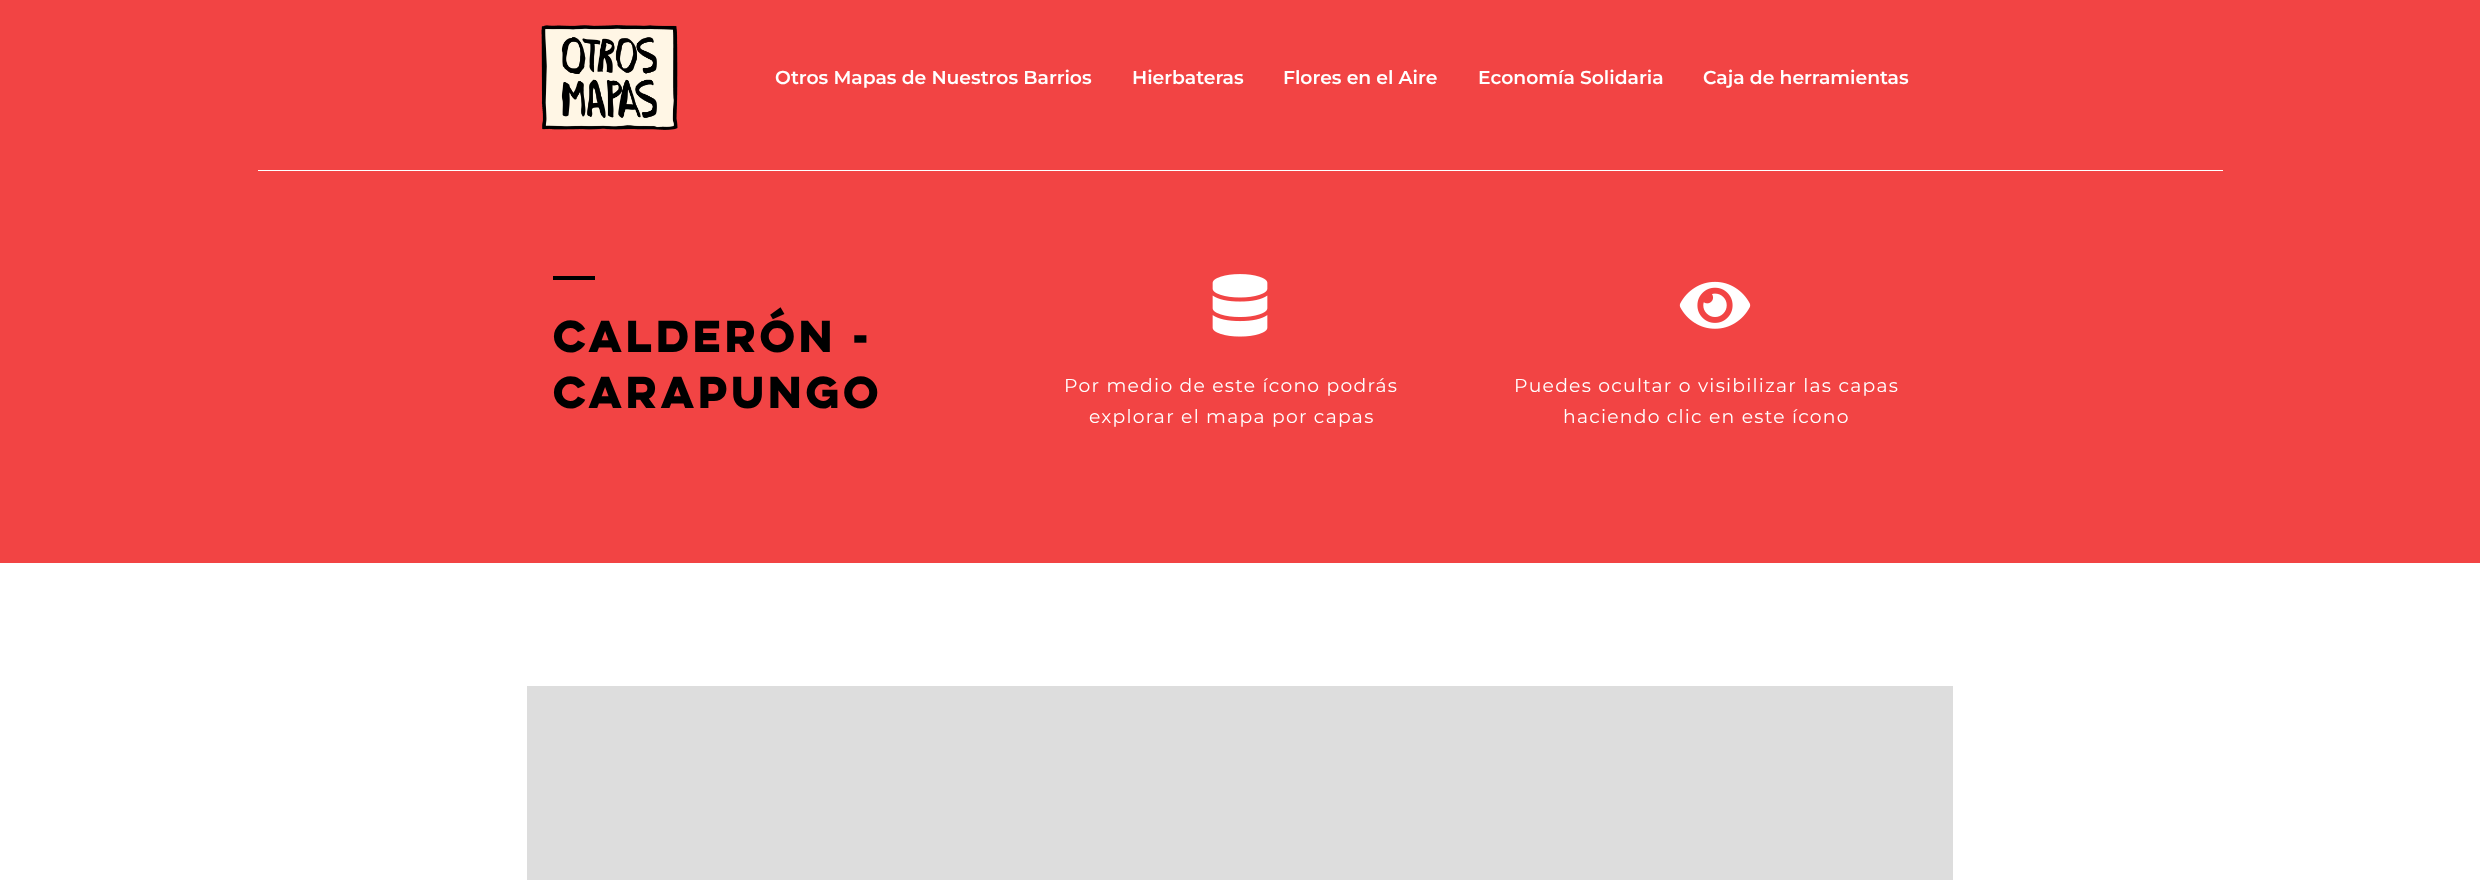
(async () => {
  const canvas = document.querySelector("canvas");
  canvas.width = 2480;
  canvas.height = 880;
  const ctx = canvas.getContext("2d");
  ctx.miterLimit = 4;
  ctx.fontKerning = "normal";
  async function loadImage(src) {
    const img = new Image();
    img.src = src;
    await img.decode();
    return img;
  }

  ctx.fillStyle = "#ffffff";
  ctx.fillRect(0, 0, 2480, 880);
  ctx.fillStyle = "#f24444";
  ctx.fillRect(0, 0, 2480, 563);
  ctx.drawImage(await loadImage("img/1.png"), 541, 25, 137, 105);
  ctx.fillStyle = "#ffffff";
  ctx.fillRect(258, 170, 1965, 1);
  ctx.fillStyle = "#000000";
  ctx.fillRect(553, 276, 42, 4);
  ctx.drawImage(await loadImage("img/2.png"), 1212, 274, 56, 63);
  ctx.drawImage(await loadImage("img/3.png"), 1679, 281, 72, 48);
  ctx.fillStyle = "#dddddd";
  ctx.fillRect(527, 686, 1426, 194);
  ctx.font = "600 18.75px Montserrat";
  ctx.fillStyle = "#ffffff";
  for (const [text, x, y] of [
    ["Otros Mapas de Nuestros Barrios", 775, 84],
    ["Hierbateras", 1132, 84],
    ["Flores en el Aire", 1283, 84],
    ["Economía Solidaria", 1478, 84],
    ["Caja de herramientas", 1703, 84],
  ]) {
    ctx.fillText(text, x, y);
  }
  ctx.letterSpacing = "-5px";
  ctx.font = "bold 40px 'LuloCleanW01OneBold'";
  ctx.fillStyle = "#000000";
  ctx.fillText("Calderón -", 553, 352);
  ctx.fillText("Carapungo", 553, 408);
  ctx.letterSpacing = "1.25px";
  ctx.font = "18.75px Montserrat";
  ctx.fillStyle = "#ffffff";
  for (const [text, x, y] of [
    ["Por medio de este ícono podrás", 1064, 392],
    ["explorar el mapa por capas", 1089, 423],
    ["Puedes ocultar o visibilizar las capas", 1514, 392],
    ["haciendo clic en este ícono", 1563, 423],
  ]) {
    ctx.fillText(text, x, y);
  }
})();
